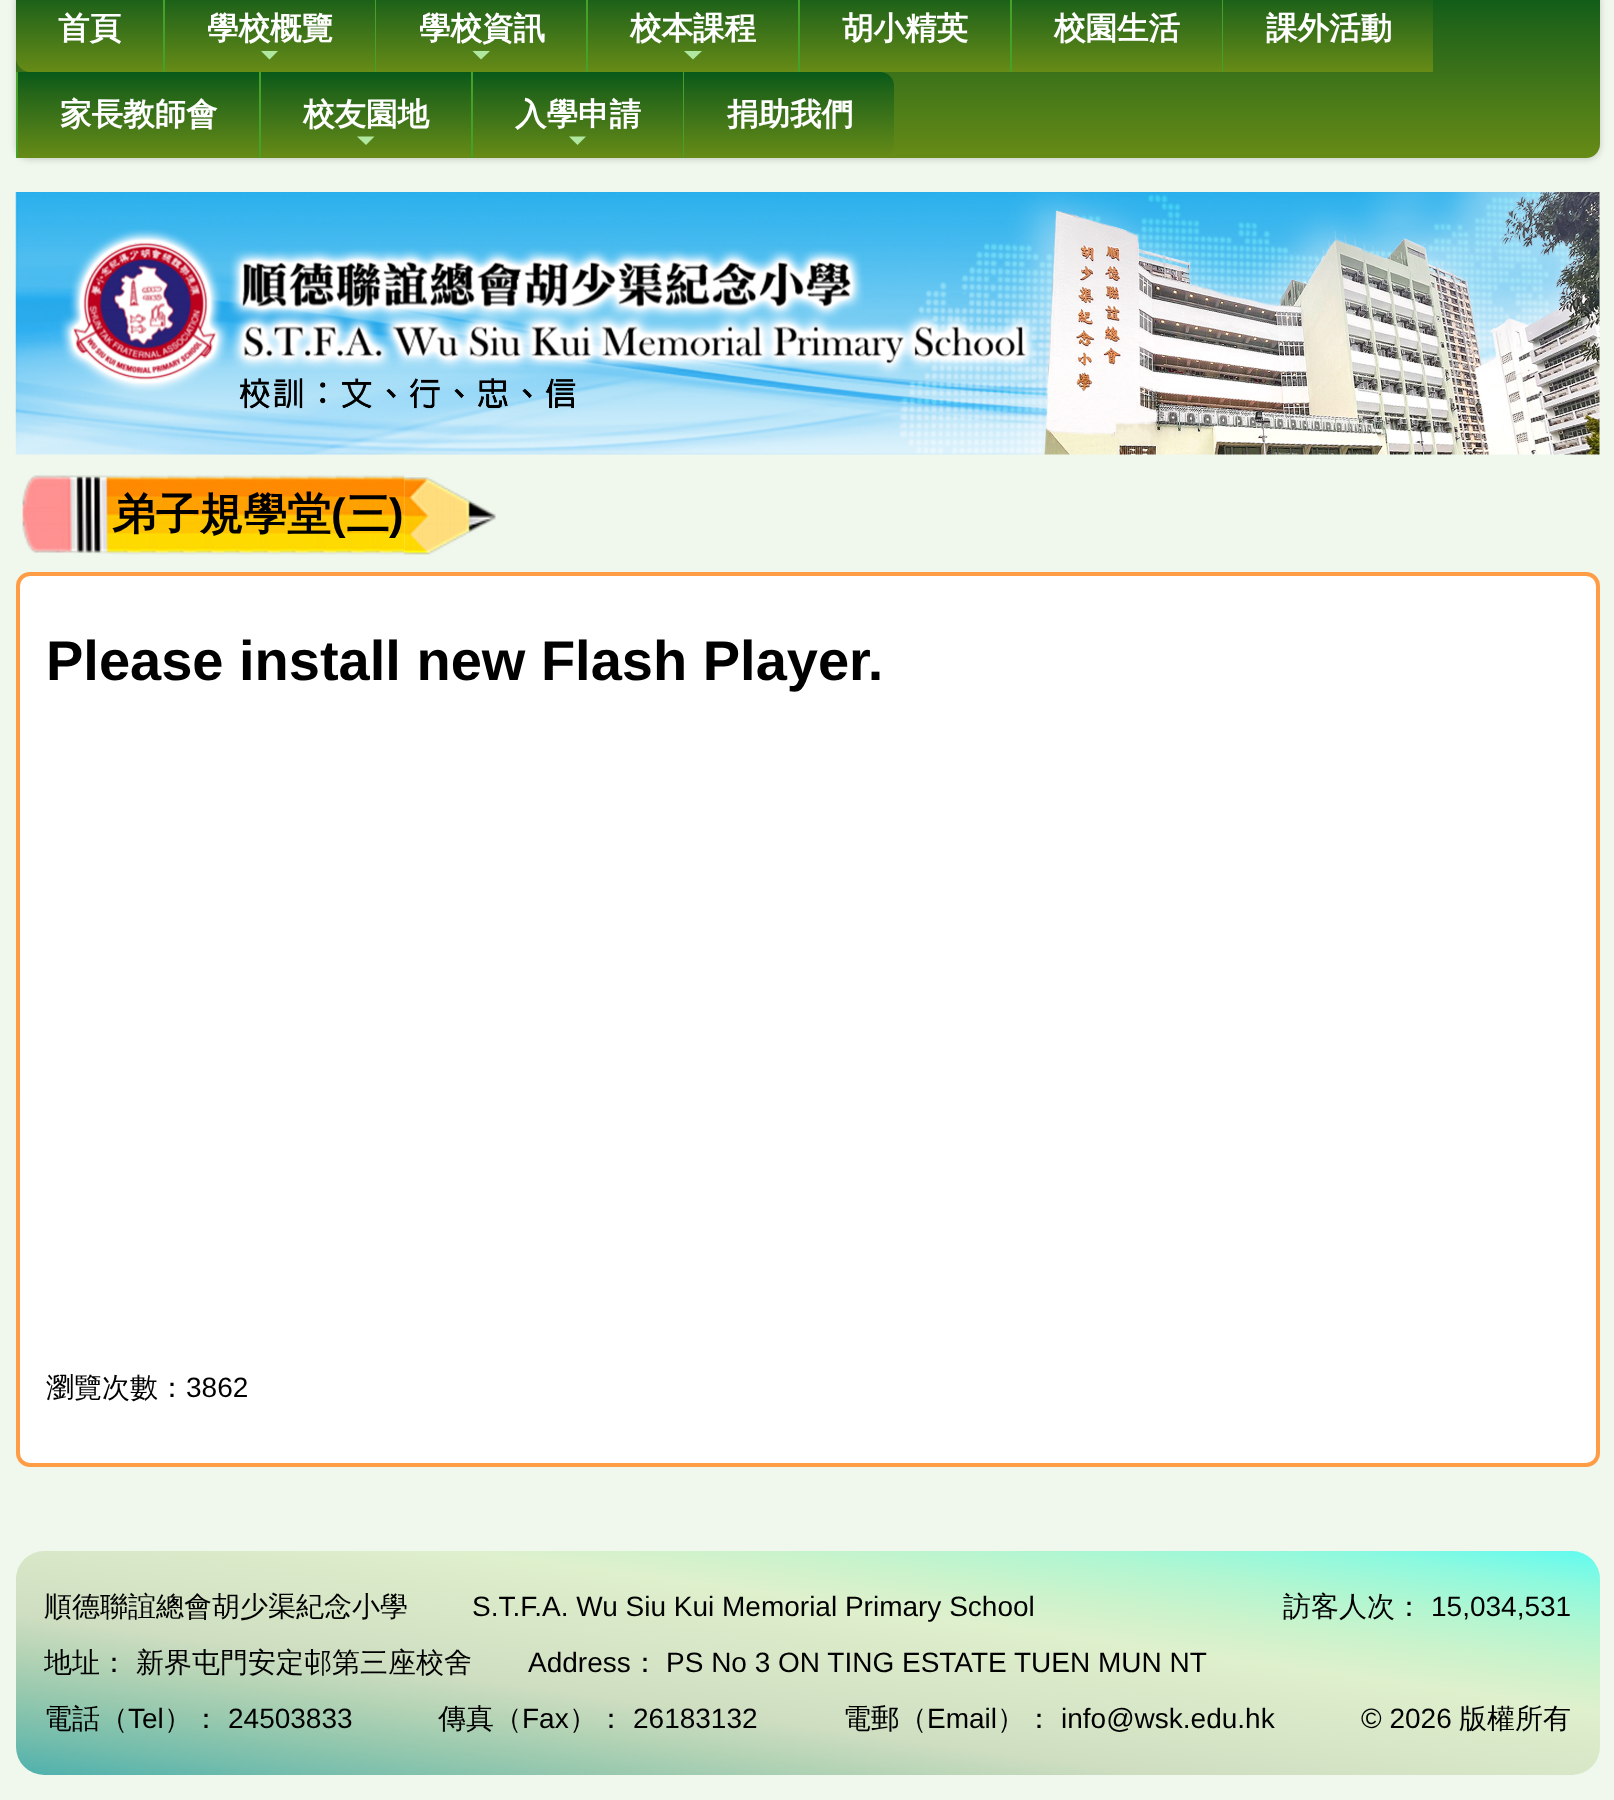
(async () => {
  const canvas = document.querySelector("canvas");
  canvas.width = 1614;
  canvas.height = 1800;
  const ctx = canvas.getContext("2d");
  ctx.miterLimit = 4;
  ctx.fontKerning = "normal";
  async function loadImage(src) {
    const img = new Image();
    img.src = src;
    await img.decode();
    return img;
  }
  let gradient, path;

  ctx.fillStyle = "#f0f8ed";
  ctx.fillRect(0, 0, 1614, 1800);
  ctx.fillStyle = "rgba(0, 0, 0, 0.2)";
  ctx.filter = "blur(3.5px)";
  ctx.beginPath();
  ctx.roundRect(16, -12, 1584, 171, 14);
  ctx.fill();
  ctx.filter = "none";
  gradient = ctx.createLinearGradient(808, -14, 808, 158);
  gradient.addColorStop(0, "#085919");
  gradient.addColorStop(0.25, "#256619");
  gradient.addColorStop(0.5, "#3b7219");
  gradient.addColorStop(0.75, "#517f18");
  gradient.addColorStop(1, "#678b16");
  ctx.fillStyle = gradient;
  ctx.beginPath();
  ctx.roundRect(16, -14, 1584, 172, 14);
  ctx.fill();
  gradient = ctx.createLinearGradient(89, -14, 89, 72);
  gradient.addColorStop(0, "#085919");
  gradient.addColorStop(0.25, "#256619");
  gradient.addColorStop(0.5, "#3b7219");
  gradient.addColorStop(0.75, "#517f18");
  gradient.addColorStop(1, "#678b16");
  ctx.fillStyle = gradient;
  path = new Path2D("M30-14H163V72H30C22.5 72 16 65.5 16 58V0C16-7.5 22.5-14 30-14Z");
  ctx.fill(path);
  ctx.fillStyle = "#45a229";
  ctx.fillRect(163, 0, 2, 72);
  gradient = ctx.createLinearGradient(270, -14, 270, 72);
  gradient.addColorStop(0, "#085919");
  gradient.addColorStop(0.25, "#256619");
  gradient.addColorStop(0.5, "#3b7219");
  gradient.addColorStop(0.75, "#517f18");
  gradient.addColorStop(1, "#678b16");
  ctx.fillStyle = gradient;
  ctx.fillRect(165, 0, 210, 72);
  ctx.fillStyle = "#b1e8a1";
  path = new Path2D("M261 51H278L269.5 59.5Z");
  ctx.fill(path);
  ctx.fillStyle = "#45a229";
  ctx.fillRect(375, 0, 1, 72);
  gradient = ctx.createLinearGradient(481, -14, 481, 72);
  gradient.addColorStop(0, "#085919");
  gradient.addColorStop(0.25, "#256619");
  gradient.addColorStop(0.5, "#3b7219");
  gradient.addColorStop(0.75, "#517f18");
  gradient.addColorStop(1, "#678b16");
  ctx.fillStyle = gradient;
  ctx.fillRect(376, 0, 210, 72);
  ctx.fillStyle = "#b1e8a1";
  path = new Path2D("M472.5 51H490L481 59.5Z");
  ctx.fill(path);
  ctx.fillStyle = "#45a229";
  ctx.fillRect(586, 0, 2, 72);
  gradient = ctx.createLinearGradient(693, -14, 693, 72);
  gradient.addColorStop(0, "#085919");
  gradient.addColorStop(0.25, "#256619");
  gradient.addColorStop(0.5, "#3b7219");
  gradient.addColorStop(0.75, "#517f18");
  gradient.addColorStop(1, "#678b16");
  ctx.fillStyle = gradient;
  ctx.fillRect(588, 0, 210, 72);
  ctx.fillStyle = "#b1e8a1";
  path = new Path2D("M684 51H702L693 59.5Z");
  ctx.fill(path);
  ctx.fillStyle = "#45a229";
  ctx.fillRect(798, 0, 2, 72);
  gradient = ctx.createLinearGradient(905, -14, 905, 72);
  gradient.addColorStop(0, "#085919");
  gradient.addColorStop(0.25, "#256619");
  gradient.addColorStop(0.5, "#3b7219");
  gradient.addColorStop(0.75, "#517f18");
  gradient.addColorStop(1, "#678b16");
  ctx.fillStyle = gradient;
  ctx.fillRect(800, 0, 210, 72);
  ctx.fillStyle = "#45a229";
  ctx.fillRect(1010, 0, 2, 72);
  gradient = ctx.createLinearGradient(1117, -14, 1117, 72);
  gradient.addColorStop(0, "#085919");
  gradient.addColorStop(0.25, "#256619");
  gradient.addColorStop(0.5, "#3b7219");
  gradient.addColorStop(0.75, "#517f18");
  gradient.addColorStop(1, "#678b16");
  ctx.fillStyle = gradient;
  ctx.fillRect(1012, 0, 210, 72);
  ctx.fillStyle = "#45a229";
  ctx.fillRect(1222, 0, 1, 72);
  gradient = ctx.createLinearGradient(1328, -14, 1328, 72);
  gradient.addColorStop(0, "#085919");
  gradient.addColorStop(0.25, "#256619");
  gradient.addColorStop(0.5, "#3b7219");
  gradient.addColorStop(0.75, "#517f18");
  gradient.addColorStop(1, "#678b16");
  ctx.fillStyle = gradient;
  ctx.fillRect(1223, 0, 210, 72);
  ctx.fillStyle = "#45a229";
  ctx.fillRect(16, 72, 2, 86);
  gradient = ctx.createLinearGradient(138, 72, 138, 158);
  gradient.addColorStop(0, "#085919");
  gradient.addColorStop(0.25, "#256619");
  gradient.addColorStop(0.5, "#3b7219");
  gradient.addColorStop(0.75, "#517f18");
  gradient.addColorStop(1, "#678b16");
  ctx.fillStyle = gradient;
  ctx.fillRect(18, 72, 241, 86);
  ctx.fillStyle = "#45a229";
  ctx.fillRect(259, 72, 2, 86);
  gradient = ctx.createLinearGradient(366, 72, 366, 158);
  gradient.addColorStop(0, "#085919");
  gradient.addColorStop(0.25, "#256619");
  gradient.addColorStop(0.5, "#3b7219");
  gradient.addColorStop(0.75, "#517f18");
  gradient.addColorStop(1, "#678b16");
  ctx.fillStyle = gradient;
  ctx.fillRect(261, 72, 210, 82);
  ctx.fillStyle = "#b1e8a1";
  path = new Path2D("M357 136.5H374.5L366 145Z");
  ctx.fill(path);
  ctx.fillStyle = "#45a229";
  ctx.fillRect(471, 72, 2, 86);
  gradient = ctx.createLinearGradient(578, 72, 578, 158);
  gradient.addColorStop(0, "#085919");
  gradient.addColorStop(0.25, "#256619");
  gradient.addColorStop(0.5, "#3b7219");
  gradient.addColorStop(0.75, "#517f18");
  gradient.addColorStop(1, "#678b16");
  ctx.fillStyle = gradient;
  ctx.fillRect(473, 72, 210, 82);
  ctx.fillStyle = "#b1e8a1";
  path = new Path2D("M569 136.5H586L577.5 145Z");
  ctx.fill(path);
  ctx.fillStyle = "#45a229";
  ctx.fillRect(683, 72, 1, 86);
  gradient = ctx.createLinearGradient(789, 72, 789, 158);
  gradient.addColorStop(0, "#085919");
  gradient.addColorStop(0.25, "#256619");
  gradient.addColorStop(0.5, "#3b7219");
  gradient.addColorStop(0.75, "#517f18");
  gradient.addColorStop(1, "#678b16");
  ctx.fillStyle = gradient;
  ctx.beginPath();
  ctx.roundRect(684, 72, 210, 86, [0, 14, 14, 0]);
  ctx.fill();
  ctx.drawImage(await loadImage("img/1.png"), 15, 192, 1585, 263);
  ctx.drawImage(await loadImage("img/2.png"), 22, 475, 90, 79);
  ctx.drawImage(await loadImage("img/3.png"), 112, 475, 293, 80);
  ctx.drawImage(await loadImage("img/4.png"), 404, 477, 92, 78);
  ctx.fillStyle = "#ffffff";
  ctx.beginPath();
  ctx.roundRect(18, 574, 1580, 891, 12);
  ctx.fill();
  ctx.strokeStyle = "#ff9d47";
  ctx.lineWidth = 4;
  ctx.stroke();
  gradient = ctx.createLinearGradient(777, 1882, 839, 1443);
  gradient.addColorStop(0, "#4eb1ad");
  gradient.addColorStop(0.09, "#74bdac");
  gradient.addColorStop(0.18, "#95c8ae");
  gradient.addColorStop(0.27, "#b4d3b5");
  gradient.addColorStop(0.36, "#cfdec1");
  gradient.addColorStop(0.45, "#d4e4c5");
  gradient.addColorStop(0.55, "#daeac9");
  gradient.addColorStop(0.64, "#dff0cd");
  gradient.addColorStop(0.73, "#cbf3cb");
  gradient.addColorStop(0.82, "#b1f6d1");
  gradient.addColorStop(0.91, "#8ff9dd");
  gradient.addColorStop(1, "#5ffbf1");
  ctx.fillStyle = gradient;
  ctx.beginPath();
  ctx.roundRect(16, 1551, 1584, 224, 28);
  ctx.fill();
  ctx.font = "bold 31.5px WenQuanYi Zen Hei";
  ctx.fillStyle = "#ffffff";
  for (const [text, x, y] of [
    ["首頁", 58, 39],
    ["學校概覽", 207, 39],
    ["學校資訊", 419, 39],
    ["校本課程", 630, 39],
    ["胡小精英", 842, 39],
    ["校園生活", 1054, 39],
    ["課外活動", 1266, 39],
    ["家長教師會", 60, 125],
    ["校友園地", 303, 125],
    ["入學申請", 515, 125],
    ["捐助我們", 727, 125],
  ]) {
    ctx.fillText(text, x, y);
  }
  ctx.font = "bold 43.75px WenQuanYi Zen Hei";
  ctx.fillStyle = "#000000";
  ctx.fillText("弟子規學堂", 112, 529);
  ctx.font = "bold 43.75px Liberation Sans";
  ctx.fillText("(", 331, 529);
  ctx.font = "bold 43.75px WenQuanYi Zen Hei";
  ctx.fillText("三", 346, 529);
  ctx.font = "bold 43.75px Liberation Sans";
  ctx.fillText(")", 389, 529);
  ctx.font = "bold 56px Liberation Sans";
  ctx.fillText("Please install new Flash Player.", 46, 680);
  ctx.font = "500 28px WenQuanYi Zen Hei";
  ctx.fillText("瀏覽次數：", 46, 1397);
  ctx.font = "28px Liberation Sans";
  ctx.fillText("3862", 186, 1397);
  ctx.font = "500 28px WenQuanYi Zen Hei";
  ctx.fillText("順德聯誼總會胡少渠紀念小學", 44, 1616);
  ctx.font = "28px Liberation Sans";
  ctx.fillText("S.T.F.A. Wu Siu Kui Memorial Primary School", 472, 1616);
  ctx.font = "500 28px WenQuanYi Zen Hei";
  ctx.fillText("訪客人次：", 1283, 1616);
  ctx.font = "28px Liberation Sans";
  ctx.fillText("15,034,531", 1431, 1616);
  ctx.font = "500 28px WenQuanYi Zen Hei";
  ctx.fillText("地址：", 44, 1672);
  ctx.fillText("新界屯門安定邨第三座校舍", 136, 1672);
  ctx.font = "28px Liberation Sans";
  ctx.fillText("Address", 528, 1672);
  ctx.font = "500 28px WenQuanYi Zen Hei";
  ctx.fillText("：", 631, 1672);
  ctx.font = "28px Liberation Sans";
  ctx.fillText("PS No 3 ON TING ESTATE TUEN MUN NT", 666, 1672);
  ctx.font = "500 28px WenQuanYi Zen Hei";
  ctx.fillText("電話（", 44, 1728);
  ctx.font = "28px Liberation Sans";
  ctx.fillText("Tel", 128, 1728);
  ctx.font = "500 28px WenQuanYi Zen Hei";
  ctx.fillText("）：", 164, 1728);
  ctx.font = "28px Liberation Sans";
  ctx.fillText("24503833", 228, 1728);
  ctx.font = "500 28px WenQuanYi Zen Hei";
  ctx.fillText("傳真（", 438, 1728);
  ctx.font = "28px Liberation Sans";
  ctx.fillText("Fax", 522, 1728);
  ctx.font = "500 28px WenQuanYi Zen Hei";
  ctx.fillText("）：", 569, 1728);
  ctx.font = "28px Liberation Sans";
  ctx.fillText("26183132", 633, 1728);
  ctx.font = "500 28px WenQuanYi Zen Hei";
  ctx.fillText("電郵（", 843, 1728);
  ctx.font = "28px Liberation Sans";
  ctx.fillText("Email", 927, 1728);
  ctx.font = "500 28px WenQuanYi Zen Hei";
  ctx.fillText("）：", 997, 1728);
  ctx.font = "28px Liberation Sans";
  ctx.fillText("info@wsk.edu.hk", 1061, 1728);
  ctx.fillText("© 2026", 1361, 1728);
  ctx.font = "500 28px WenQuanYi Zen Hei";
  ctx.fillText("版權所有", 1459, 1728);
})();
